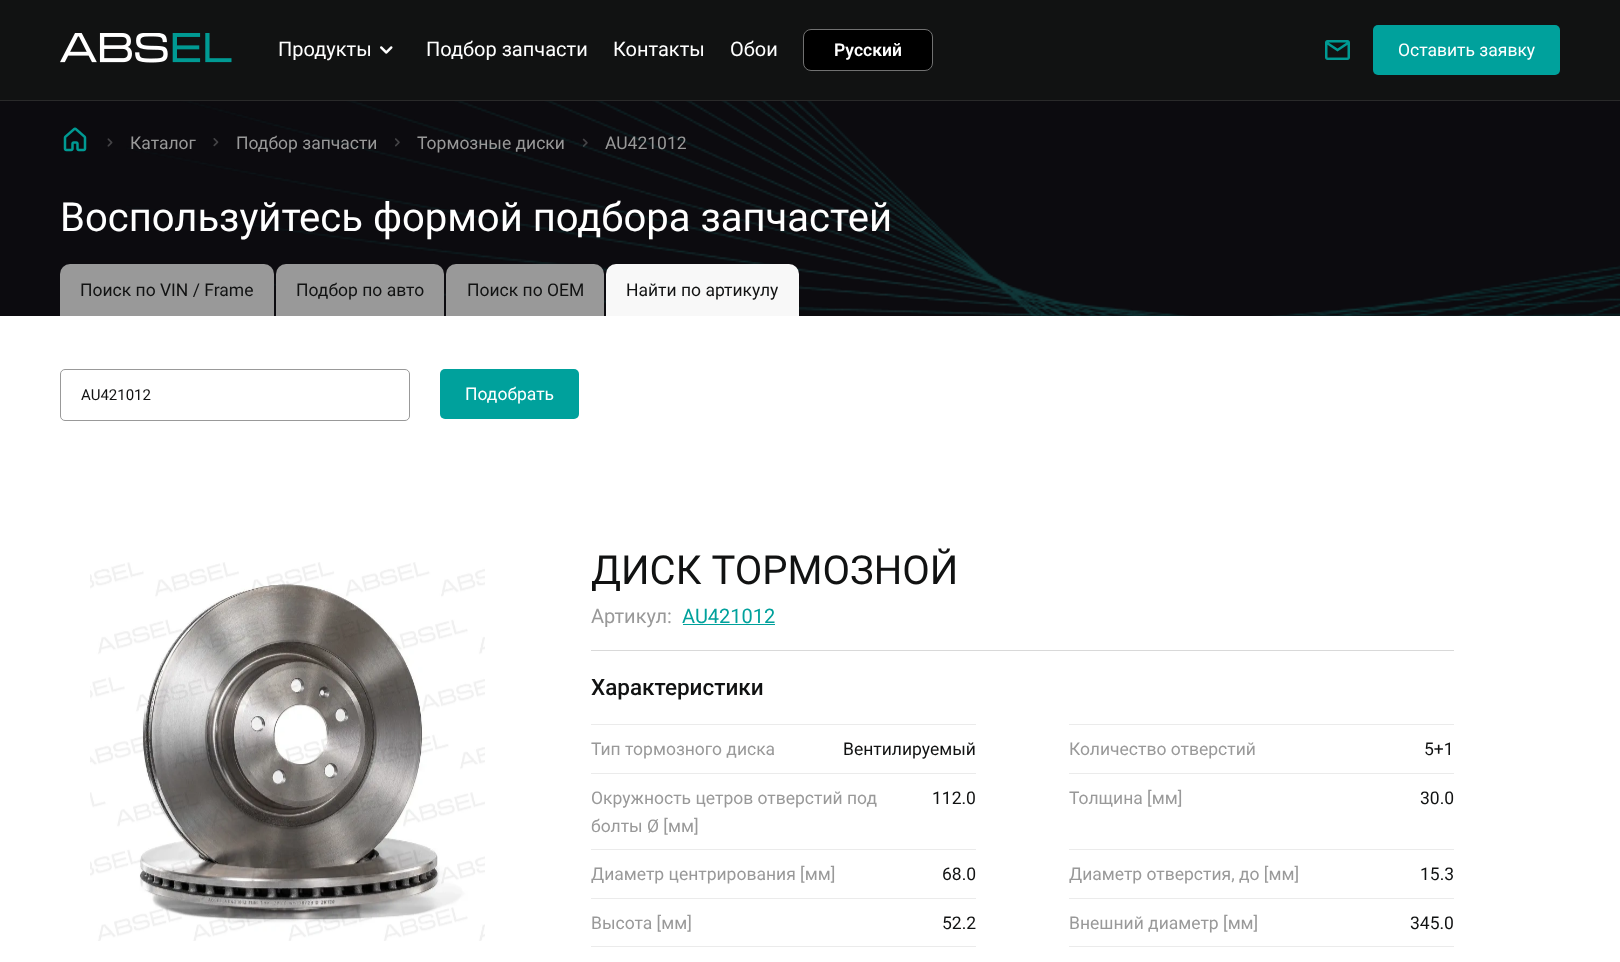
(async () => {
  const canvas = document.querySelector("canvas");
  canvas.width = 1620;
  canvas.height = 962;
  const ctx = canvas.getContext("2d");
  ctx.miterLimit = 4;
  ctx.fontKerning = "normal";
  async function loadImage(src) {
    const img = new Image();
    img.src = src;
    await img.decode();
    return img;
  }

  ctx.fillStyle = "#0c0b0f";
  ctx.fillRect(0, 0, 1620, 962);
  ctx.fillStyle = "#111212";
  ctx.fillRect(0, 0, 1620, 100);
  ctx.fillStyle = "#2a2a2a";
  ctx.fillRect(0, 100, 1620, 1);
  ctx.drawImage(await loadImage("img/1.png"), 60, 33, 172, 30);
  ctx.drawImage(await loadImage("img/2.png"), 380, 46, 13, 8);
  ctx.fillStyle = "#000000";
  ctx.beginPath();
  ctx.roundRect(803.5, 29.5, 129, 41, 7.5);
  ctx.fill();
  ctx.strokeStyle = "#717171";
  ctx.stroke();
  ctx.drawImage(await loadImage("img/3.png"), 1325, 40, 25, 20);
  ctx.fillStyle = "#00a19c";
  ctx.beginPath();
  ctx.roundRect(1373, 25, 187, 50, 5);
  ctx.fill();
  ctx.drawImage(await loadImage("img/4.png"), 126, 101, 1494, 215);
  ctx.drawImage(await loadImage("img/5.png"), 63, 127, 24, 25);
  ctx.drawImage(await loadImage("img/6.png"), 107, 138, 6, 9);
  ctx.drawImage(await loadImage("img/7.png"), 213, 138, 6, 9);
  ctx.drawImage(await loadImage("img/8.png"), 395, 138, 5, 9);
  ctx.drawImage(await loadImage("img/9.png"), 582, 138, 6, 9);
  ctx.fillStyle = "#ffffff";
  ctx.fillRect(0, 316, 1620, 646);
  ctx.fillStyle = "#999999";
  ctx.beginPath();
  ctx.roundRect(60, 264, 214, 52, [10, 10, 0, 0]);
  ctx.fill();
  ctx.beginPath();
  ctx.roundRect(276, 264, 168, 52, [10, 10, 0, 0]);
  ctx.fill();
  ctx.beginPath();
  ctx.roundRect(446, 264, 158, 52, [10, 10, 0, 0]);
  ctx.fill();
  ctx.fillStyle = "#f8f8f8";
  ctx.beginPath();
  ctx.roundRect(606, 264, 193, 52, [10, 10, 0, 0]);
  ctx.fill();
  ctx.beginPath();
  ctx.roundRect(60.5, 369.5, 349, 51, 4.5);
  ctx.strokeStyle = "#999999";
  ctx.stroke();
  ctx.fillStyle = "#00a19c";
  ctx.beginPath();
  ctx.roundRect(440, 369, 139, 50, 5);
  ctx.fill();
  ctx.drawImage(await loadImage("img/10.png"), 90, 562, 395, 379);
  for (const [x, y, w, h, color] of [
    [591, 650, 863, 1, "#d9d9d9"],
    [683, 624, 92, 1, "#00a19c"],
    [591, 724, 385, 1, "#ebebeb"],
    [1069, 724, 385, 1, "#ebebeb"],
    [591, 773, 385, 1, "#ebebeb"],
    [1069, 773, 385, 1, "#ebebeb"],
    [591, 849, 385, 1, "#ebebeb"],
    [1069, 849, 385, 1, "#ebebeb"],
    [591, 898, 385, 1, "#ebebeb"],
    [1069, 898, 385, 1, "#ebebeb"],
    [591, 946, 385, 1, "#ebebeb"],
    [1069, 946, 385, 1, "#ebebeb"],
  ]) {
    ctx.fillStyle = color;
    ctx.fillRect(x, y, w, h);
  }
  ctx.font = "20px Roboto";
  ctx.fillStyle = "#ffffff";
  for (const [text, x, y] of [
    ["Продукты", 278, 56],
    ["Подбор запчасти", 426, 56],
    ["Контакты", 613, 56],
    ["Обои", 730, 56],
  ]) {
    ctx.fillText(text, x, y);
  }
  ctx.font = "600 17.5px Roboto";
  ctx.fillText("Русский", 834, 56);
  ctx.font = "17.5px Roboto";
  ctx.fillText("Оставить заявку", 1398, 56);
  ctx.fillStyle = "#999999";
  for (const [text, x, y] of [
    ["Каталог", 130, 149],
    ["Подбор запчасти", 236, 149],
    ["Тормозные диски", 417, 149],
    ["AU421012", 605, 149],
  ]) {
    ctx.fillText(text, x, y);
  }
  ctx.font = "40px Roboto";
  ctx.fillStyle = "#ffffff";
  ctx.fillText("Воспользуйтесь формой подбора запчастей", 60, 231);
  ctx.font = "17.5px Roboto";
  ctx.fillStyle = "#111212";
  for (const [text, x, y] of [
    ["Поиск по VIN / Frame", 80, 296],
    ["Подбор по авто", 296, 296],
    ["Поиск по OEM", 467, 296],
    ["Найти по артикулу", 626, 296],
  ]) {
    ctx.fillText(text, x, y);
  }
  ctx.font = "15px Roboto";
  ctx.fillText("AU421012", 81, 400);
  ctx.font = "17.5px Roboto";
  ctx.fillStyle = "#ffffff";
  ctx.fillText("Подобрать", 465, 400);
  ctx.wordSpacing = "1px";
  ctx.font = "40px Roboto";
  ctx.fillStyle = "#111212";
  ctx.fillText("ДИСК ТОРМОЗНОЙ", 591, 584);
  ctx.wordSpacing = "0px";
  ctx.font = "20px Roboto";
  ctx.fillStyle = "#999999";
  ctx.fillText("Артикул:", 591, 623);
  ctx.fillStyle = "#00a19c";
  ctx.fillText("AU421012", 682, 623);
  ctx.font = "500 22.5px Roboto";
  ctx.fillStyle = "#111212";
  ctx.fillText("Характеристики", 591, 695);
  ctx.font = "17.5px Roboto";
  ctx.fillStyle = "#999999";
  ctx.fillText("Тип тормозного диска", 591, 755);
  ctx.fillStyle = "#111212";
  ctx.fillText("Вентилируемый", 843, 755);
  ctx.fillStyle = "#999999";
  ctx.fillText("Количество отверстий", 1069, 755);
  ctx.fillStyle = "#111212";
  ctx.fillText("5+1", 1424, 755);
  ctx.fillStyle = "#999999";
  ctx.fillText("Окружность цетров отверстий под", 591, 804);
  ctx.fillText("болты Ø [мм]", 591, 832);
  ctx.fillStyle = "#111212";
  ctx.fillText("112.0", 932, 804);
  ctx.fillStyle = "#999999";
  ctx.fillText("Толщина [мм]", 1069, 804);
  ctx.fillStyle = "#111212";
  ctx.fillText("30.0", 1420, 804);
  ctx.fillStyle = "#999999";
  ctx.fillText("Диаметр центрирования [мм]", 591, 880);
  ctx.fillStyle = "#111212";
  ctx.fillText("68.0", 942, 880);
  ctx.fillStyle = "#999999";
  ctx.fillText("Диаметр отверстия, до [мм]", 1069, 880);
  ctx.fillStyle = "#111212";
  ctx.fillText("15.3", 1420, 880);
  ctx.fillStyle = "#999999";
  ctx.fillText("Высота [мм]", 591, 929);
  ctx.fillStyle = "#111212";
  ctx.fillText("52.2", 942, 929);
  ctx.fillStyle = "#999999";
  ctx.fillText("Внешний диаметр [мм]", 1069, 929);
  ctx.fillStyle = "#111212";
  ctx.fillText("345.0", 1410, 929);
})();
